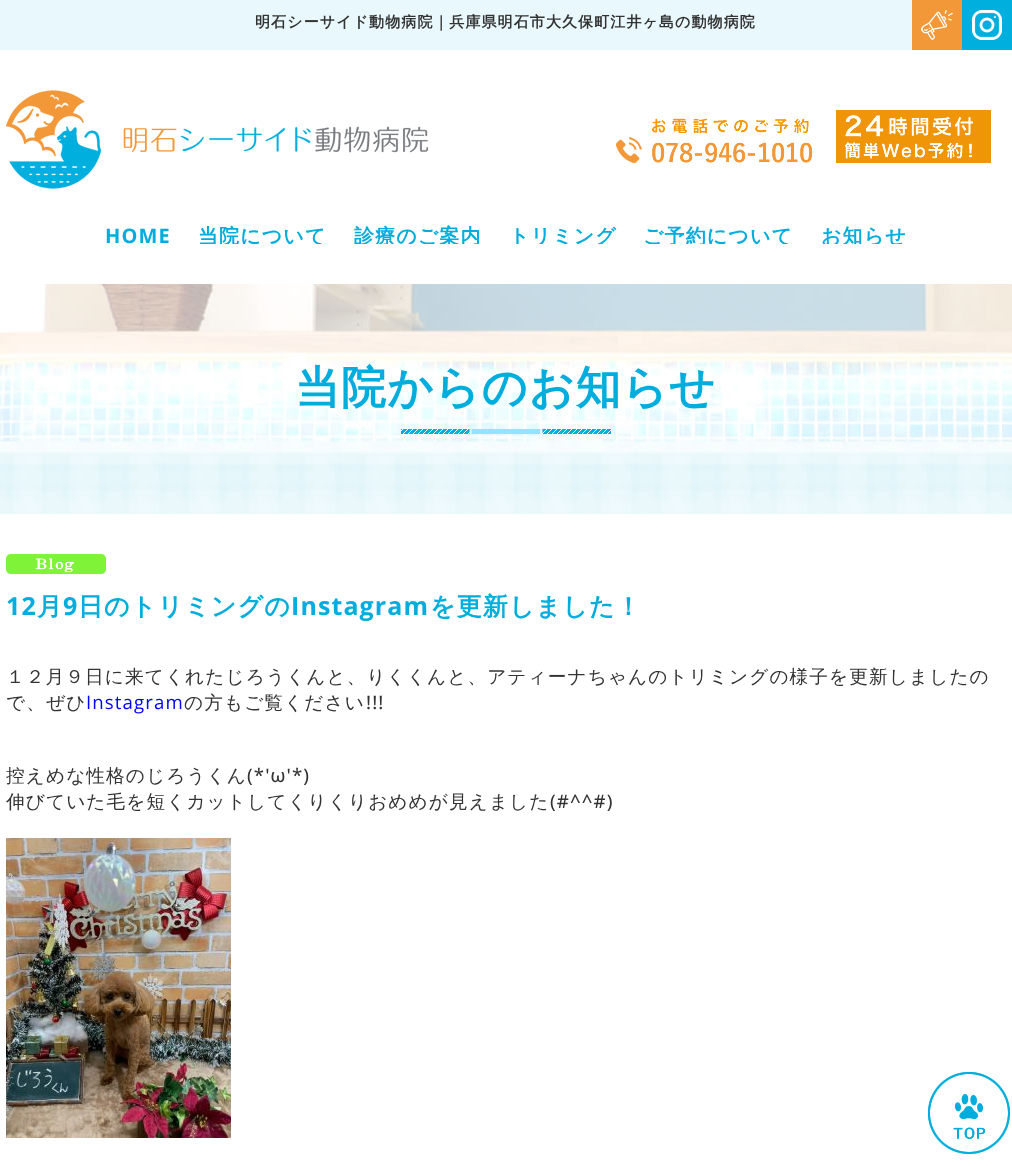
(async () => {
  const canvas = document.querySelector("canvas");
  canvas.width = 1012;
  canvas.height = 1166;
  const ctx = canvas.getContext("2d");
  ctx.miterLimit = 4;
  ctx.fontKerning = "normal";
  async function loadImage(src) {
    const img = new Image();
    img.src = src;
    await img.decode();
    return img;
  }

  ctx.fillStyle = "#ffffff";
  ctx.fillRect(0, 0, 1012, 1166);
  ctx.fillStyle = "#e9f8fc";
  ctx.fillRect(0, 0, 912, 50);
  ctx.drawImage(await loadImage("img/1.png"), 912, 0, 50, 50);
  ctx.drawImage(await loadImage("img/2.png"), 962, 0, 50, 50);
  ctx.drawImage(await loadImage("img/3.png"), 6, 90, 422, 99);
  ctx.drawImage(await loadImage("img/4.png"), 616, 118, 197, 45);
  ctx.drawImage(await loadImage("img/5.png"), 836, 110, 155, 53);
  ctx.drawImage(await loadImage("img/6.png"), 0, 284, 1012, 230);
  ctx.drawImage(await loadImage("img/7.png"), 401, 429, 210, 5);
  ctx.drawImage(await loadImage("img/8.png"), 6, 554, 100, 20);
  ctx.drawImage(await loadImage("img/9.png"), 6, 838, 225, 300);
  ctx.drawImage(await loadImage("img/10.png"), 928, 1072, 82, 82);
  ctx.letterSpacing = "1.1px";
  ctx.font = "bold 15px WenQuanYi Zen Hei";
  ctx.fillStyle = "#333333";
  ctx.fillText("明石シーサイド動物病院｜兵庫県明石市大久保町江井ヶ島の動物病院", 255, 27);
  ctx.font = "bold 20px Open Sans";
  ctx.fillStyle = "#00addd";
  ctx.fillText("HOME", 105, 243);
  ctx.save();
  ctx.beginPath();
  ctx.rect(192, 224, 141, 20);
  ctx.clip();
  ctx.font = "bold 20px WenQuanYi Zen Hei";
  ctx.fillText("当院について", 198, 243);
  ctx.restore();
  ctx.save();
  ctx.beginPath();
  ctx.rect(348, 224, 140, 20);
  ctx.clip();
  ctx.font = "bold 20px WenQuanYi Zen Hei";
  ctx.fillText("診療のご案内", 354, 243);
  ctx.restore();
  ctx.save();
  ctx.beginPath();
  ctx.rect(503, 224, 119, 20);
  ctx.clip();
  ctx.font = "bold 20px WenQuanYi Zen Hei";
  ctx.fillText("トリミング", 509, 243);
  ctx.restore();
  ctx.save();
  ctx.beginPath();
  ctx.rect(637, 224, 163, 20);
  ctx.clip();
  ctx.font = "bold 20px WenQuanYi Zen Hei";
  ctx.fillText("ご予約について", 643, 243);
  ctx.restore();
  ctx.save();
  ctx.beginPath();
  ctx.rect(815, 224, 98, 20);
  ctx.clip();
  ctx.font = "bold 20px WenQuanYi Zen Hei";
  ctx.fillText("お知らせ", 821, 243);
  ctx.restore();
  ctx.font = "bold 45px WenQuanYi Zen Hei";
  ctx.fillText("当院からのお知らせ", 295, 403);
  ctx.font = "bold 25px Open Sans";
  ctx.fillText("12", 6, 615);
  ctx.font = "bold 25px WenQuanYi Zen Hei";
  ctx.fillText("月", 37, 615);
  ctx.font = "bold 25px Open Sans";
  ctx.fillText("9", 63, 615);
  ctx.font = "bold 25px WenQuanYi Zen Hei";
  ctx.fillText("日のトリミングの", 78, 615);
  ctx.font = "bold 25px Open Sans";
  ctx.fillText("Instagram", 291, 615);
  ctx.font = "bold 25px WenQuanYi Zen Hei";
  ctx.fillText("を更新しました！", 430, 615);
  ctx.font = "500 18.67px WenQuanYi Zen Hei";
  ctx.fillStyle = "#333333";
  ctx.fillText("１２月９日に来てくれたじろうくんと、りくくんと、アティーナちゃんのトリミングの様子を更新しましたの", 6, 683);
  ctx.fillText("で、ぜひ", 6, 709);
  ctx.font = "18.67px Open Sans";
  ctx.fillStyle = "#0000ff";
  ctx.fillText("Instagram", 86, 709);
  ctx.font = "500 18.67px WenQuanYi Zen Hei";
  ctx.fillStyle = "#333333";
  ctx.fillText("の方もご覧ください", 184, 709);
  ctx.font = "500 18.67px Open Sans";
  ctx.fillText("!!!", 366, 709);
  ctx.font = "500 18.67px WenQuanYi Zen Hei";
  ctx.fillText("控えめな性格のじろうくん", 6, 782);
  ctx.font = "500 18.67px Open Sans";
  ctx.fillText("(*'ω'*)", 247, 782);
  ctx.font = "500 18.67px WenQuanYi Zen Hei";
  ctx.fillText("伸びていた毛を短くカットしてくりくりおめめが見えました", 6, 808);
  ctx.font = "500 18.67px Open Sans";
  ctx.fillText("(#^^#)", 550, 808);
})();
